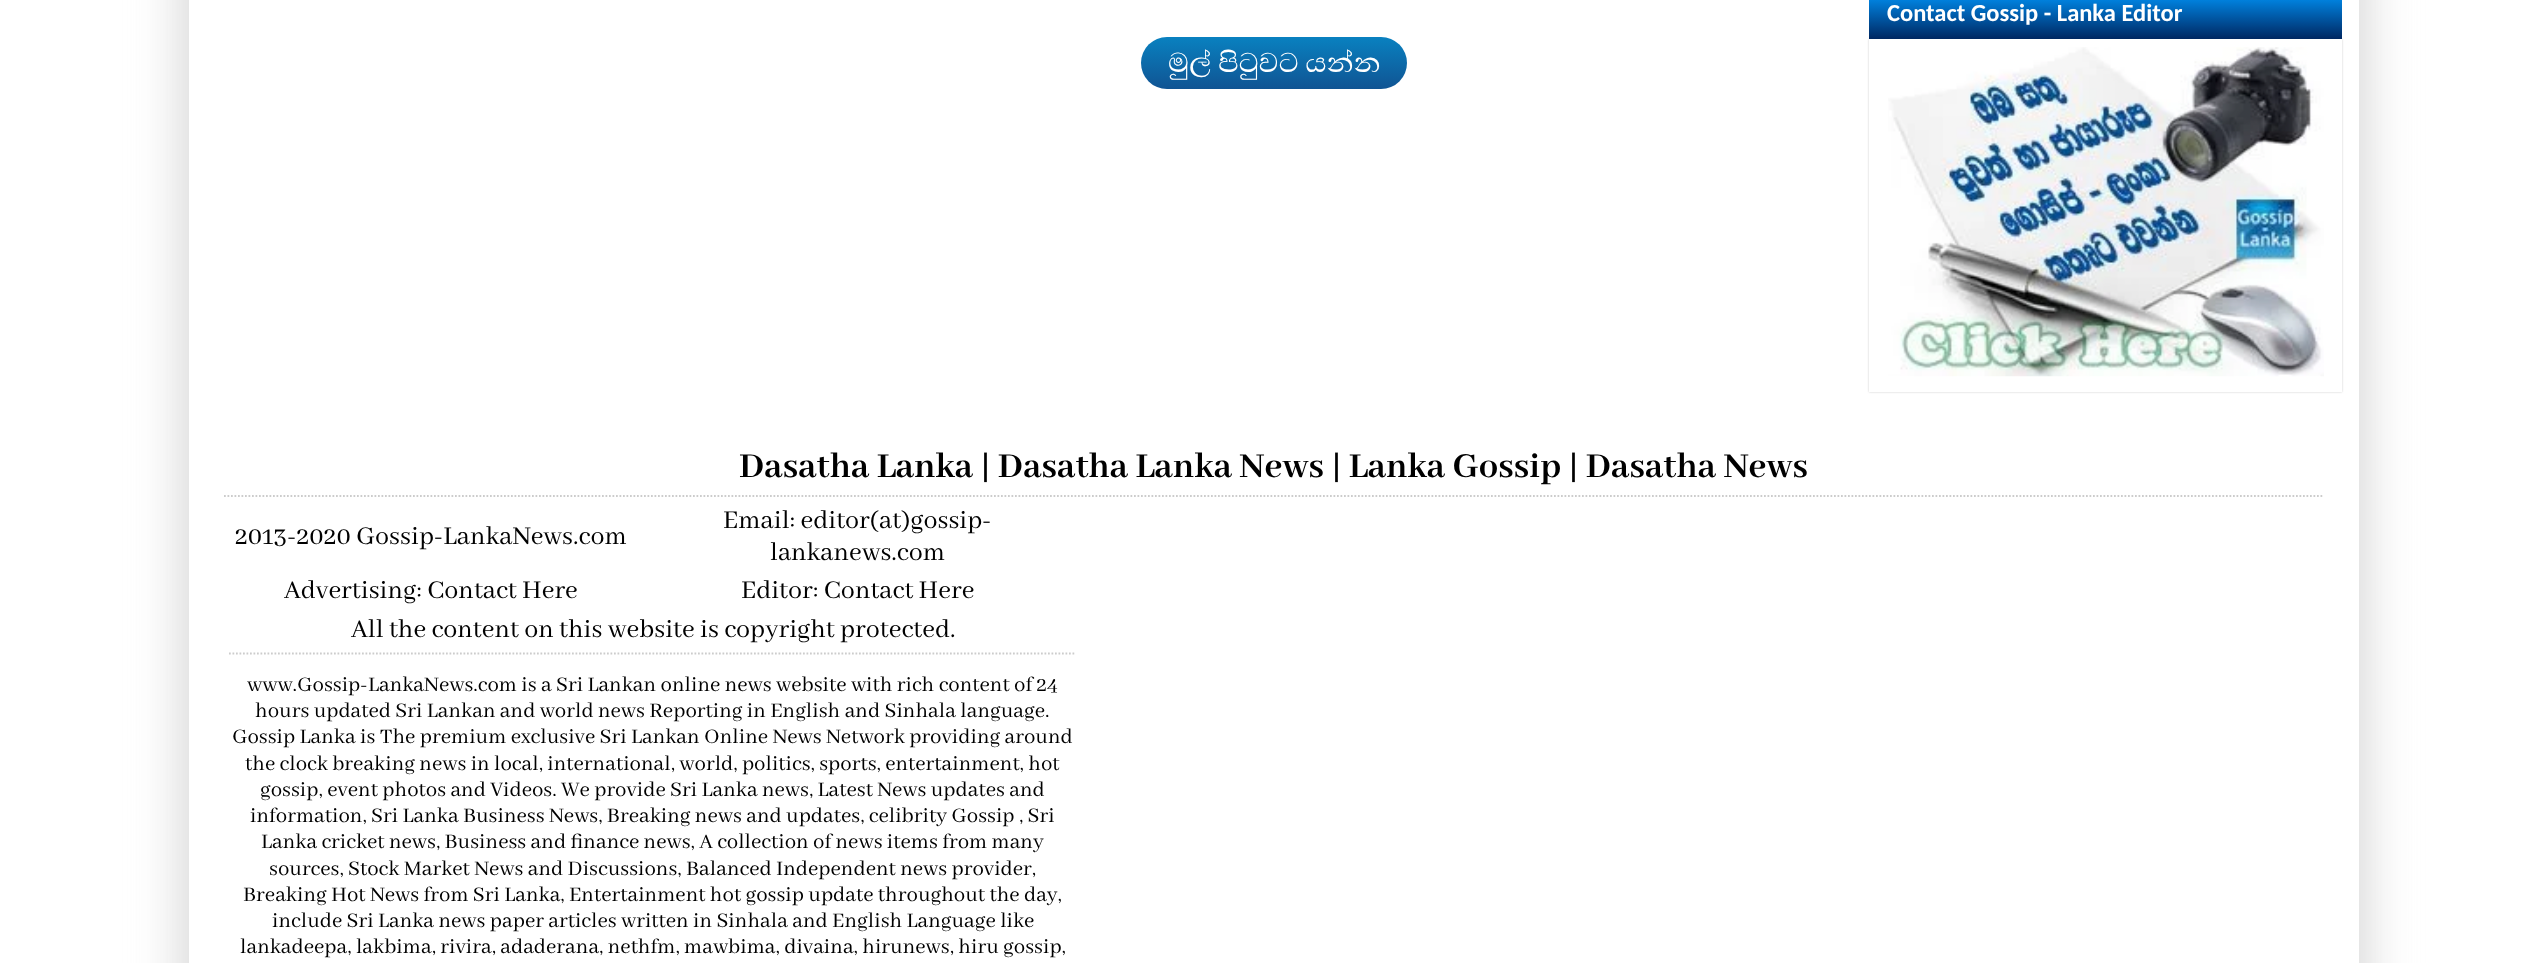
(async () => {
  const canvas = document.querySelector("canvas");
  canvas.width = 2548;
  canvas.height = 963;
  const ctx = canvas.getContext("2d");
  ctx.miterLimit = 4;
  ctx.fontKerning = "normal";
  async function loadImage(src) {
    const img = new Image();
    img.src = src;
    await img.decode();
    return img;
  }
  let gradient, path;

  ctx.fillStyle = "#ffffff";
  ctx.fillRect(0, 0, 2548, 963);
  ctx.save();
  path = new Path2D("M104 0H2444V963H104ZM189-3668H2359V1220H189Z");
  ctx.clip(path, "evenodd");
  ctx.fillStyle = "#cccccc";
  ctx.filter = "blur(28px)";
  ctx.beginPath();
  ctx.rect(189, -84, 2170, 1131);
  ctx.fill();
  ctx.filter = "none";
  ctx.restore();
  ctx.fillStyle = "#cccccc";
  ctx.filter = "blur(1px)";
  ctx.beginPath();
  ctx.rect(1869, 39, 473, 353);
  ctx.fill();
  ctx.filter = "none";
  gradient = ctx.createLinearGradient(2105, -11, 2105, 39);
  gradient.addColorStop(0, "#0099ff");
  gradient.addColorStop(1, "#002761");
  ctx.fillStyle = gradient;
  ctx.fillRect(1869, 0, 473, 39);
  ctx.fillStyle = "#ffffff";
  ctx.fillRect(1869, 39, 473, 353);
  ctx.drawImage(await loadImage("img/1.png"), 1888, 47, 436, 330);
  gradient = ctx.createLinearGradient(1274, 37, 1274, 89);
  gradient.addColorStop(0, "#0981c0");
  gradient.addColorStop(1, "#105493");
  ctx.fillStyle = gradient;
  ctx.beginPath();
  ctx.roundRect(1141, 37, 266, 52, 26);
  ctx.fill();
  path = new Path2D("M224 496H2324");
  ctx.strokeStyle = "#cccccc";
  ctx.lineWidth = 1.8;
  ctx.setLineDash([1.75, 1.75]);
  ctx.stroke(path);
  path = new Path2D("M229 653.5H1076");
  ctx.stroke(path);
  ctx.font = "bold 24.5px Carlito";
  ctx.fillStyle = "#ffffff";
  ctx.fillText("Contact Gossip - Lanka Editor", 1887, 21);
  ctx.font = "35px Abhaya Libre";
  ctx.fillText("මුල් පිටුවට යන්න", 1168, 72);
  ctx.font = "bold 38.5px Abhaya Libre";
  ctx.fillStyle = "#000000";
  ctx.fillText("Dasatha Lanka | Dasatha Lanka News | Lanka Gossip | Dasatha News", 739, 477);
  ctx.font = "28px Abhaya Libre";
  for (const [text, x, y] of [
    ["2013-2020 Gossip-LankaNews.com", 235, 544],
    ["Email: editor(at)gossip-", 723, 528],
    ["lankanews.com", 770, 560],
    ["Advertising: Contact Here", 284, 598],
    ["Editor: Contact Here", 741, 598],
    ["All the content on this website is copyright protected.", 351, 637],
  ]) {
    ctx.fillText(text, x, y);
  }
  ctx.font = "22.75px Abhaya Libre";
  for (const [text, x, y] of [
    ["www.Gossip-LankaNews.com is a Sri Lankan online news website with rich content of 24", 247, 691],
    ["hours updated Sri Lankan and world news Reporting in English and Sinhala language.", 255, 717],
    ["Gossip Lanka is The premium exclusive Sri Lankan Online News Network providing around", 232, 743],
    ["the clock breaking news in local, international, world, politics, sports, entertainment, hot", 245, 770],
    ["gossip, event photos and Videos. We provide Sri Lanka news, Latest News updates and", 260, 796],
    ["information, Sri Lanka Business News, Breaking news and updates, celibrity Gossip , Sri", 250, 822],
    ["Lanka cricket news, Business and finance news, A collection of news items from many", 261, 848],
    ["sources, Stock Market News and Discussions, Balanced Independent news provider,", 269, 875],
    ["Breaking Hot News from Sri Lanka, Entertainment hot gossip update throughout the day,", 243, 901],
    ["include Sri Lanka news paper articles written in Sinhala and English Language like", 272, 927],
    ["lankadeepa, lakbima, rivira, adaderana, nethfm, mawbima, divaina, hirunews, hiru gossip,", 240, 953],
  ]) {
    ctx.fillText(text, x, y);
  }
})();
